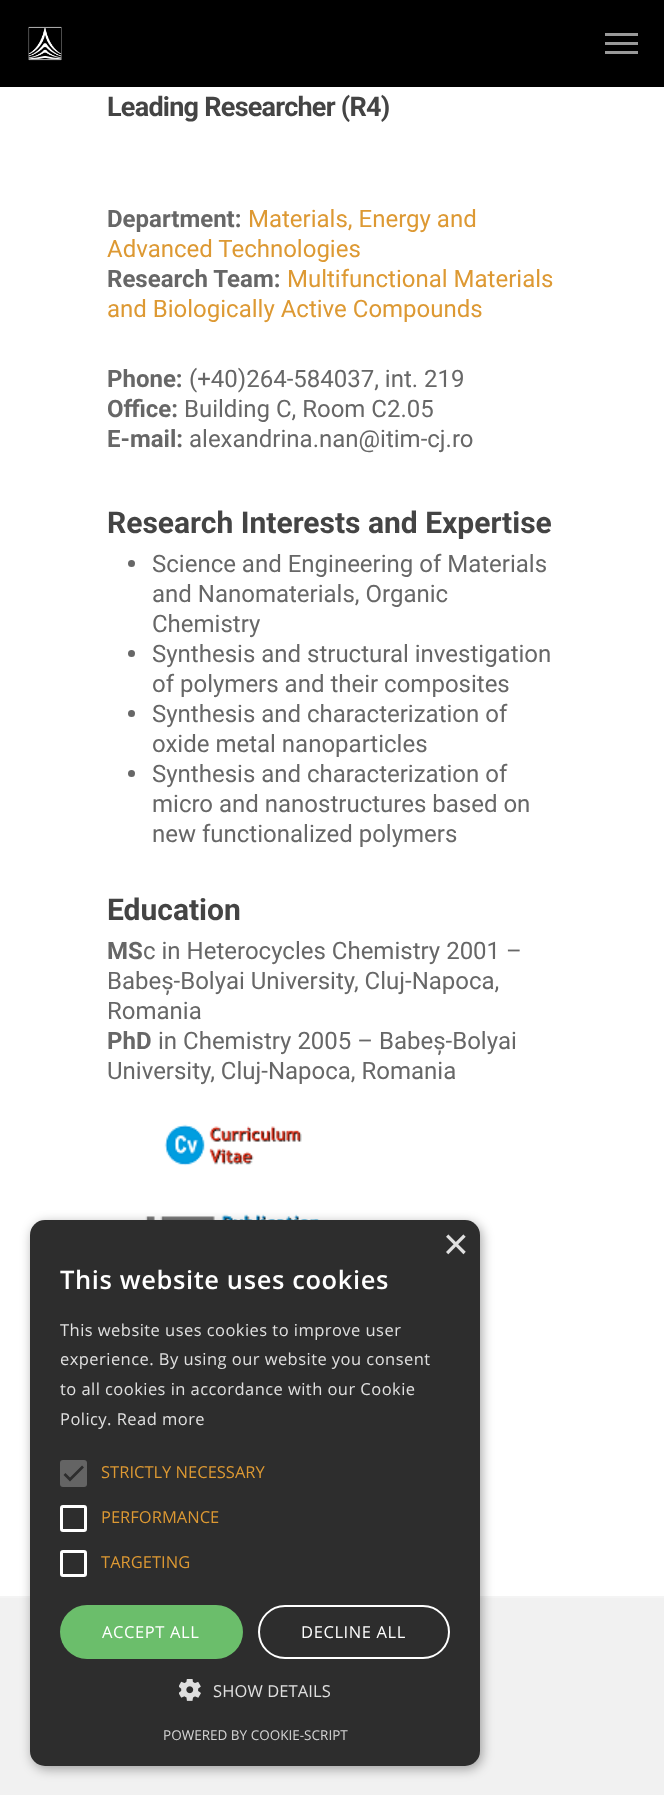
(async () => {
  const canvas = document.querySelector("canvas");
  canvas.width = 664;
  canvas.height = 1795;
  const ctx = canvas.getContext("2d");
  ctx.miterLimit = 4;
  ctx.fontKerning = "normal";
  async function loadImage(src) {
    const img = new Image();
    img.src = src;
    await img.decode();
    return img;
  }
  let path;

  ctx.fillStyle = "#f1f1f1";
  ctx.fillRect(0, 0, 664, 1795);
  ctx.fillStyle = "#000000";
  ctx.fillRect(0, 0, 664, 87);
  ctx.drawImage(await loadImage("img/1.png"), 28, 26, 34, 35);
  for (const [x, y, w, h, color] of [
    [605, 33, 33, 3, "#999999"],
    [605, 51, 33, 3, "#999999"],
    [605, 42, 33, 3, "#999999"],
    [0, 87, 664, 1509, "#ffffff"],
  ]) {
    ctx.fillStyle = color;
    ctx.fillRect(x, y, w, h);
  }
  ctx.fillStyle = "#676767";
  ctx.beginPath();
  ctx.arc(131.5, 563.5, 3.5, 0, Math.PI * 2);
  ctx.fill();
  ctx.beginPath();
  ctx.arc(131.5, 653.5, 3.5, 0, Math.PI * 2);
  ctx.fill();
  ctx.beginPath();
  ctx.arc(131.5, 713.5, 3.5, 0, Math.PI * 2);
  ctx.fill();
  ctx.beginPath();
  ctx.arc(131.5, 773.5, 3.5, 0, Math.PI * 2);
  ctx.fill();
  ctx.drawImage(await loadImage("img/2.png"), 164, 1124, 138, 42);
  ctx.drawImage(await loadImage("img/3.png"), 145, 1214, 177, 6);
  ctx.fillStyle = "#f4f4f4";
  ctx.fillRect(0, 1596, 664, 2);
  ctx.fillStyle = "rgba(0, 0, 0, 0.35)";
  ctx.filter = "blur(6px)";
  ctx.beginPath();
  ctx.roundRect(32, 1223, 450, 546, 15);
  ctx.fill();
  ctx.filter = "none";
  ctx.fillStyle = "#2d2d2d";
  ctx.beginPath();
  ctx.roundRect(30, 1220, 450, 546, 15);
  ctx.fill();
  ctx.fillStyle = "#646464";
  ctx.beginPath();
  ctx.roundRect(60, 1460, 27, 27, 3);
  ctx.fill();
  path = new Path2D("M64.5 1474L70 1479.5L83 1466.5");
  ctx.strokeStyle = "#2d2d2d";
  ctx.lineWidth = 2.7;
  ctx.stroke(path);
  ctx.beginPath();
  ctx.roundRect(61.5, 1506.5, 24, 24, 1.5);
  ctx.strokeStyle = "#ffffff";
  ctx.lineWidth = 3;
  ctx.stroke();
  ctx.beginPath();
  ctx.roundRect(61.5, 1551.5, 24, 24, 1.5);
  ctx.stroke();
  ctx.fillStyle = "#6bbe6b";
  ctx.beginPath();
  ctx.roundRect(60, 1605, 183, 54, 27);
  ctx.fill();
  ctx.beginPath();
  ctx.roundRect(259, 1606, 190, 52, 26);
  ctx.lineWidth = 2;
  ctx.stroke();
  ctx.drawImage(await loadImage("img/4.png"), 179, 1679, 22, 22);
  ctx.letterSpacing = "-0.75px";
  ctx.font = "bold 27px Roboto";
  ctx.fillStyle = "#444444";
  ctx.fillText("Leading Researcher (R4)", 107, 116);
  ctx.letterSpacing = "0px";
  ctx.font = "bold 24px Roboto";
  ctx.fillStyle = "#676767";
  ctx.fillText("Department:", 107, 227);
  ctx.font = "24px Roboto";
  ctx.fillStyle = "#dd9933";
  ctx.fillText("Materials, Energy and", 248, 227);
  ctx.fillText("Advanced Technologies", 107, 257);
  ctx.font = "bold 24px Roboto";
  ctx.fillStyle = "#676767";
  ctx.fillText("Research Team:", 107, 287);
  ctx.font = "24px Roboto";
  ctx.fillStyle = "#dd9933";
  ctx.fillText("Multifunctional Materials", 287, 287);
  ctx.fillText("and Biologically Active Compounds", 107, 317);
  ctx.font = "bold 24px Roboto";
  ctx.fillStyle = "#676767";
  ctx.fillText("Phone:", 107, 387);
  ctx.font = "24px Roboto";
  ctx.fillText("(+40)264-584037, int. 219", 189, 387);
  ctx.font = "bold 24px Roboto";
  ctx.fillText("Office:", 107, 417);
  ctx.font = "24px Roboto";
  ctx.fillText("Building C, Room C2.05", 184, 417);
  ctx.font = "bold 24px Roboto";
  ctx.fillText("E-mail:", 107, 447);
  ctx.font = "24px Roboto";
  ctx.fillText("alexandrina.nan@itim-cj.ro", 189, 447);
  ctx.font = "bold 30px Roboto";
  ctx.fillStyle = "#444444";
  ctx.fillText("Research Interests and Expertise", 107, 533);
  ctx.font = "24px Roboto";
  ctx.fillStyle = "#676767";
  for (const [text, x, y] of [
    ["Science and Engineering of Materials", 152, 572],
    ["and Nanomaterials, Organic", 152, 602],
    ["Chemistry", 152, 632],
    ["Synthesis and structural investigation", 152, 662],
    ["of polymers and their composites", 152, 692],
    ["Synthesis and characterization of", 152, 722],
    ["oxide metal nanoparticles", 152, 752],
    ["Synthesis and characterization of", 152, 782],
    ["micro and nanostructures based on", 152, 812],
    ["new functionalized polymers", 152, 842],
  ]) {
    ctx.fillText(text, x, y);
  }
  ctx.font = "bold 30px Roboto";
  ctx.fillStyle = "#444444";
  ctx.fillText("Education", 107, 920);
  ctx.font = "bold 24px Roboto";
  ctx.fillStyle = "#676767";
  ctx.fillText("MS", 107, 959);
  ctx.font = "24px Roboto";
  for (const [text, x, y] of [
    ["c in Heterocycles Chemistry 2001 –", 143, 959],
    ["Babeș-Bolyai University, Cluj-Napoca,", 107, 989],
    ["Romania", 107, 1019],
  ]) {
    ctx.fillText(text, x, y);
  }
  ctx.font = "bold 24px Roboto";
  ctx.fillText("PhD", 107, 1049);
  ctx.font = "24px Roboto";
  ctx.fillText("in Chemistry 2005 – Babeș-Bolyai", 158, 1049);
  ctx.fillText("University, Cluj-Napoca, Romania", 107, 1079);
  ctx.font = "44px Liberation Sans";
  ctx.fillStyle = "#e0e0e0";
  ctx.fillText("×", 443, 1259);
  ctx.letterSpacing = "0.6px";
  ctx.font = "600 25.5px Open Sans";
  ctx.fillStyle = "#ffffff";
  ctx.fillText("This website uses cookies", 60, 1289);
  ctx.letterSpacing = "0.45px";
  ctx.font = "16.5px Open Sans";
  ctx.fillStyle = "#e0e0e0";
  for (const [text, x, y] of [
    ["This website uses cookies to improve user", 60, 1336],
    ["experience. By using our website you consent", 60, 1365],
    ["to all cookies in accordance with our Cookie", 60, 1395],
    ["Policy. Read more", 60, 1425],
  ]) {
    ctx.fillText(text, x, y);
  }
  ctx.letterSpacing = "0px";
  ctx.fillStyle = "#dd9933";
  for (const [text, x, y] of [
    ["STRICTLY NECESSARY", 101, 1478],
    ["PERFORMANCE", 101, 1523],
    ["TARGETING", 101, 1568],
  ]) {
    ctx.fillText(text, x, y);
  }
  ctx.letterSpacing = "0.6px";
  ctx.fillStyle = "#ffffff";
  ctx.fillText("ACCEPT ALL", 102, 1638);
  ctx.fillText("DECLINE ALL", 301, 1638);
  ctx.letterSpacing = "0.1px";
  ctx.fillStyle = "#e0e0e0";
  ctx.fillText("SHOW DETAILS", 213, 1697);
  ctx.letterSpacing = "0px";
  ctx.font = "13.5px Open Sans";
  ctx.fillStyle = "#d5d5d5";
  ctx.fillText("POWERED BY COOKIE-SCRIPT", 163, 1740);
})();
